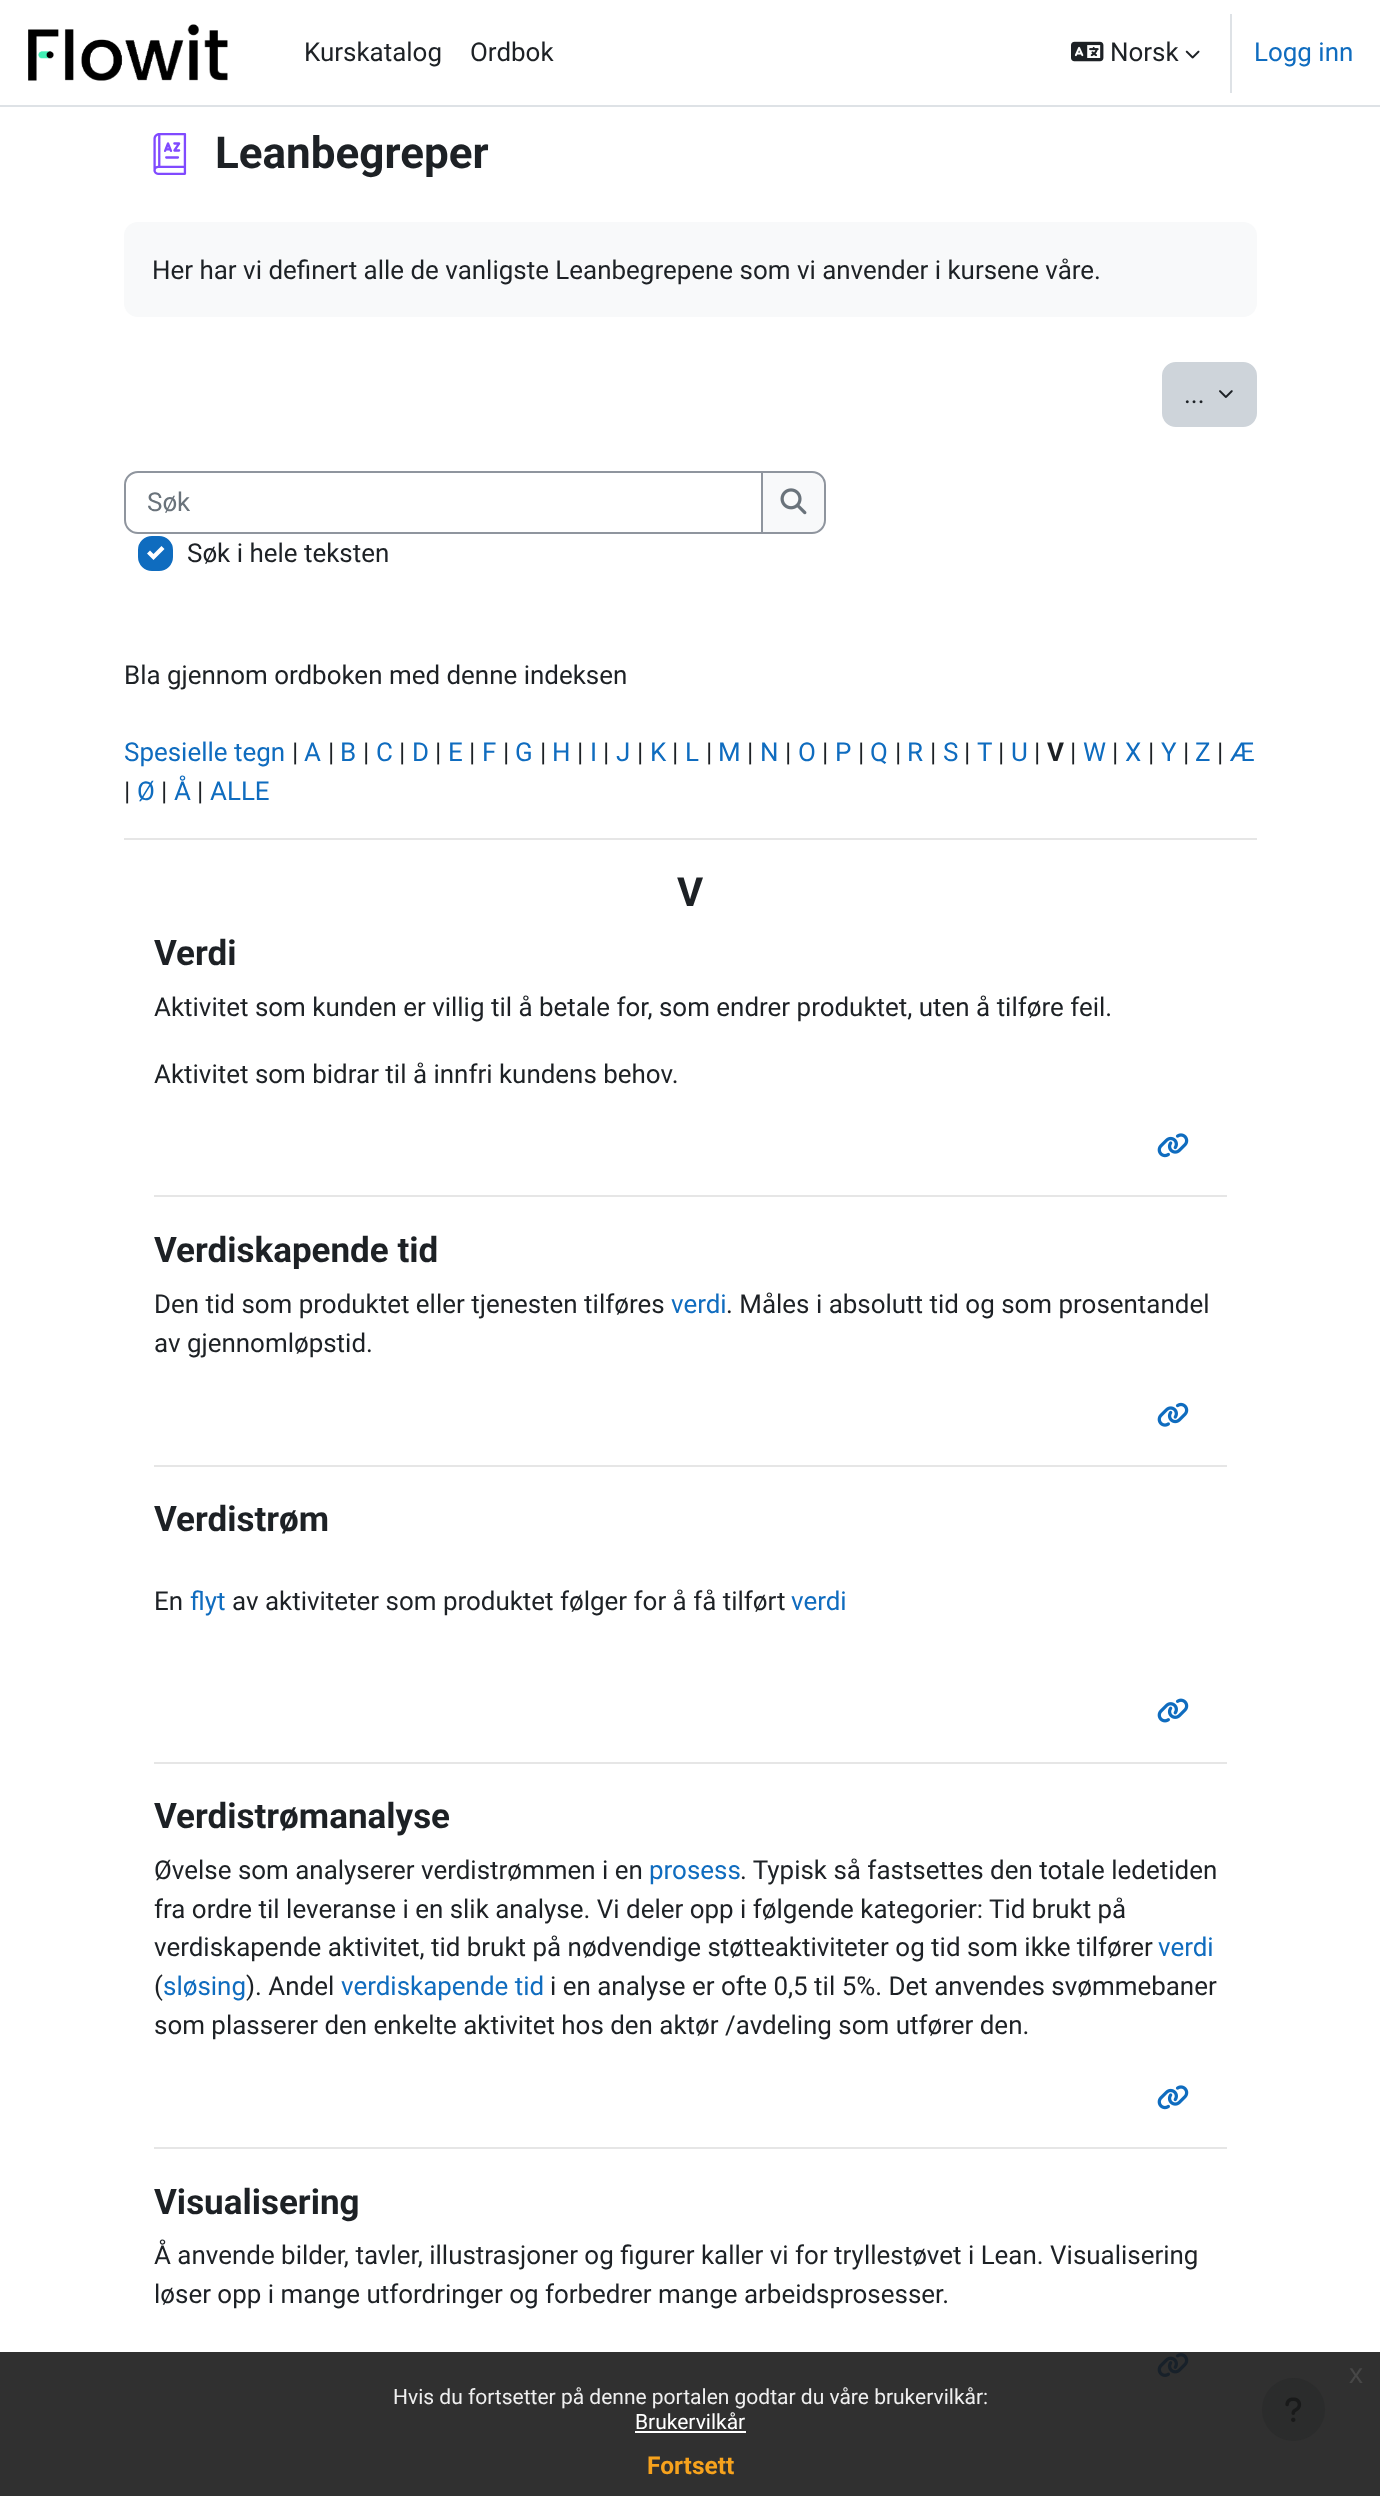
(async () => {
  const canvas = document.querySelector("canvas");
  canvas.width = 1380;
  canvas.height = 2496;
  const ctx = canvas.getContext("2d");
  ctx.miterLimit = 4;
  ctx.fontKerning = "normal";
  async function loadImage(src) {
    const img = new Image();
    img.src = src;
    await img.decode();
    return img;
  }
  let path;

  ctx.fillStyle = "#ffffff";
  ctx.fillRect(0, 0, 1380, 2496);
  ctx.fillStyle = "#303030";
  ctx.fillRect(0, 2352, 1380, 144);
  ctx.fillStyle = "#dee2e6";
  ctx.fillRect(0, 105, 1380, 2);
  ctx.drawImage(await loadImage("img/1.png"), 28, 24, 200, 57);
  ctx.drawImage(await loadImage("img/2.png"), 1071, 41, 33, 21);
  ctx.drawImage(await loadImage("img/3.png"), 1185, 50, 15, 9);
  ctx.fillRect(1230, 14, 2, 79);
  ctx.drawImage(await loadImage("img/4.png"), 153, 133, 34, 42);
  ctx.fillStyle = "#f8f9fa";
  ctx.beginPath();
  ctx.roundRect(124, 222, 1133, 95, 14);
  ctx.fill();
  ctx.fillStyle = "#ced4da";
  ctx.beginPath();
  ctx.roundRect(1163, 363, 93, 63, 13);
  ctx.fill();
  ctx.strokeStyle = "#ced4da";
  ctx.lineWidth = 2;
  ctx.stroke();
  ctx.drawImage(await loadImage("img/5.png"), 1219, 390, 14, 8);
  ctx.beginPath();
  ctx.roundRect(125, 472, 637, 61, [13, 0, 0, 13]);
  ctx.strokeStyle = "#8f959e";
  ctx.stroke();
  ctx.fillStyle = "#f8f9fa";
  ctx.beginPath();
  ctx.roundRect(762, 472, 63, 61, [0, 13, 13, 0]);
  ctx.fill();
  ctx.stroke();
  ctx.drawImage(await loadImage("img/6.png"), 780, 488, 27, 27);
  ctx.fillStyle = "#0f6cbf";
  ctx.beginPath();
  ctx.roundRect(139, 537, 33, 33, 13);
  ctx.fill();
  ctx.strokeStyle = "#0f6cbf";
  ctx.stroke();
  ctx.fillStyle = "#ffffff";
  path = new Path2D("M161.5 546L153.5 554L150 550.5L147 553.5L153.5 560L164.5 549Z");
  ctx.fill(path);
  ctx.fillStyle = "#e6e6e6";
  ctx.fillRect(124, 838, 1133, 2);
  ctx.drawImage(await loadImage("img/7.png"), 1157, 1133, 32, 25);
  ctx.fillRect(154, 1195, 1073, 2);
  ctx.drawImage(await loadImage("img/8.png"), 1157, 1402, 32, 25);
  ctx.fillRect(154, 1465, 1073, 2);
  ctx.drawImage(await loadImage("img/9.png"), 1157, 1698, 32, 25);
  ctx.fillRect(154, 1762, 1073, 2);
  ctx.drawImage(await loadImage("img/7.png"), 1157, 2085, 32, 25);
  ctx.fillRect(154, 2147, 1073, 2);
  ctx.drawImage(await loadImage("img/10.png"), 1157, 2353, 32, 24);
  ctx.fillStyle = "#2b2c2c";
  ctx.beginPath();
  ctx.arc(1293.5, 2409.5, 31.5, 0, Math.PI * 2);
  ctx.fill();
  ctx.drawImage(await loadImage("img/11.png"), 1285, 2397, 17, 25);
  ctx.fillStyle = "#ffffff";
  ctx.fillRect(635, 2431, 111, 2);
  ctx.font = "25.95px Roboto";
  ctx.fillStyle = "#1d2125";
  for (const [text, x, y] of [
    ["Kurskatalog", 304, 61],
    ["Ordbok", 470, 61],
    ["Norsk", 1110, 61],
  ]) {
    ctx.fillText(text, x, y);
  }
  ctx.fillStyle = "#0f6cbf";
  ctx.fillText("Logg inn", 1254, 61);
  ctx.font = "bold 44px Roboto";
  ctx.fillStyle = "#1d2125";
  ctx.fillText("Leanbegreper", 215, 168);
  ctx.font = "25.95px Roboto";
  ctx.fillText("Her har vi definert alle de vanligste Leanbegrepene som vi anvender i kursene våre.", 152, 279);
  ctx.fillText("...", 1184, 403);
  ctx.fillStyle = "#6a737b";
  ctx.fillText("Søk", 147, 511);
  ctx.fillStyle = "#1d2125";
  ctx.fillText("Søk i hele teksten", 187, 562);
  ctx.fillText("Bla gjennom ordboken med denne indeksen", 124, 684);
  ctx.fillStyle = "#0f6cbf";
  ctx.fillText("Spesielle tegn", 124, 761);
  ctx.fillStyle = "#1d2125";
  ctx.fillText("|", 292, 761);
  ctx.fillStyle = "#0f6cbf";
  ctx.fillText("A", 304, 761);
  ctx.fillStyle = "#1d2125";
  ctx.fillText("|", 328, 761);
  ctx.fillStyle = "#0f6cbf";
  ctx.fillText("B", 340, 761);
  ctx.fillStyle = "#1d2125";
  ctx.fillText("|", 363, 761);
  ctx.fillStyle = "#0f6cbf";
  ctx.fillText("C", 376, 761);
  ctx.fillStyle = "#1d2125";
  ctx.fillText("|", 399, 761);
  ctx.fillStyle = "#0f6cbf";
  ctx.fillText("D", 412, 761);
  ctx.fillStyle = "#1d2125";
  ctx.fillText("|", 435, 761);
  ctx.fillStyle = "#0f6cbf";
  ctx.fillText("E", 448, 761);
  ctx.fillStyle = "#1d2125";
  ctx.fillText("|", 469, 761);
  ctx.fillStyle = "#0f6cbf";
  ctx.fillText("F", 482, 761);
  ctx.fillStyle = "#1d2125";
  ctx.fillText("|", 503, 761);
  ctx.fillStyle = "#0f6cbf";
  ctx.fillText("G", 515, 761);
  ctx.fillStyle = "#1d2125";
  ctx.fillText("|", 540, 761);
  ctx.fillStyle = "#0f6cbf";
  ctx.fillText("H", 552, 761);
  ctx.fillStyle = "#1d2125";
  ctx.fillText("|", 577, 761);
  ctx.fillStyle = "#0f6cbf";
  ctx.fillText("I", 590, 761);
  ctx.fillStyle = "#1d2125";
  ctx.fillText("|", 603, 761);
  ctx.fillStyle = "#0f6cbf";
  ctx.fillText("J", 616, 761);
  ctx.fillStyle = "#1d2125";
  ctx.fillText("|", 637, 761);
  ctx.fillStyle = "#0f6cbf";
  ctx.fillText("K", 650, 761);
  ctx.fillStyle = "#1d2125";
  ctx.fillText("|", 672, 761);
  ctx.fillStyle = "#0f6cbf";
  ctx.fillText("L", 685, 761);
  ctx.fillStyle = "#1d2125";
  ctx.fillText("|", 706, 761);
  ctx.fillStyle = "#0f6cbf";
  ctx.fillText("M", 718, 761);
  ctx.fillStyle = "#1d2125";
  ctx.fillText("|", 747, 761);
  ctx.fillStyle = "#0f6cbf";
  ctx.fillText("N", 760, 761);
  ctx.fillStyle = "#1d2125";
  ctx.fillText("|", 785, 761);
  ctx.fillStyle = "#0f6cbf";
  ctx.fillText("O", 798, 761);
  ctx.fillStyle = "#1d2125";
  ctx.fillText("|", 822, 761);
  ctx.fillStyle = "#0f6cbf";
  ctx.fillText("P", 835, 761);
  ctx.fillStyle = "#1d2125";
  ctx.fillText("|", 858, 761);
  ctx.fillStyle = "#0f6cbf";
  ctx.fillText("Q", 870, 761);
  ctx.fillStyle = "#1d2125";
  ctx.fillText("|", 895, 761);
  ctx.fillStyle = "#0f6cbf";
  ctx.fillText("R", 907, 761);
  ctx.fillStyle = "#1d2125";
  ctx.fillText("|", 930, 761);
  ctx.fillStyle = "#0f6cbf";
  ctx.fillText("S", 943, 761);
  ctx.fillStyle = "#1d2125";
  ctx.fillText("|", 964, 761);
  ctx.fillStyle = "#0f6cbf";
  ctx.fillText("T", 977, 761);
  ctx.fillStyle = "#1d2125";
  ctx.fillText("|", 998, 761);
  ctx.fillStyle = "#0f6cbf";
  ctx.fillText("U", 1011, 761);
  ctx.fillStyle = "#1d2125";
  ctx.fillText("|", 1034, 761);
  ctx.font = "bold 25.95px Roboto";
  ctx.fillText("V", 1047, 761);
  ctx.font = "25.95px Roboto";
  ctx.fillText("|", 1070, 761);
  ctx.fillStyle = "#0f6cbf";
  ctx.fillText("W", 1083, 761);
  ctx.fillStyle = "#1d2125";
  ctx.fillText("|", 1112, 761);
  ctx.fillStyle = "#0f6cbf";
  ctx.fillText("X", 1125, 761);
  ctx.fillStyle = "#1d2125";
  ctx.fillText("|", 1148, 761);
  ctx.fillStyle = "#0f6cbf";
  ctx.fillText("Y", 1161, 761);
  ctx.fillStyle = "#1d2125";
  ctx.fillText("|", 1183, 761);
  ctx.fillStyle = "#0f6cbf";
  ctx.fillText("Z", 1195, 761);
  ctx.fillStyle = "#1d2125";
  ctx.fillText("|", 1217, 761);
  ctx.fillStyle = "#0f6cbf";
  ctx.fillText("Æ", 1230, 761);
  ctx.fillStyle = "#1d2125";
  ctx.fillText("|", 124, 800);
  ctx.fillStyle = "#0f6cbf";
  ctx.fillText("Ø", 137, 800);
  ctx.fillStyle = "#1d2125";
  ctx.fillText("|", 161, 800);
  ctx.fillStyle = "#0f6cbf";
  ctx.fillText("Å", 174, 800);
  ctx.fillStyle = "#1d2125";
  ctx.fillText("|", 197, 800);
  ctx.fillStyle = "#0f6cbf";
  ctx.fillText("ALLE", 210, 800);
  ctx.font = "bold 40px Roboto";
  ctx.fillStyle = "#1d2125";
  ctx.fillText("V", 677, 906);
  ctx.font = "bold 35px Roboto";
  ctx.fillText("Verdi", 154, 965);
  ctx.font = "25.95px Roboto";
  ctx.fillText("Aktivitet som kunden er villig til å betale for, som endrer produktet, uten å tilføre feil.", 154, 1016);
  ctx.fillText("Aktivitet som bidrar til å innfri kundens behov.", 154, 1083);
  ctx.font = "bold 35px Roboto";
  ctx.fillText("Verdiskapende tid", 154, 1262);
  ctx.font = "25.95px Roboto";
  ctx.fillText("Den tid som produktet eller tjenesten tilføres", 154, 1313);
  ctx.fillStyle = "#0f6cbf";
  ctx.fillText("verdi", 671, 1313);
  ctx.fillStyle = "#1d2125";
  ctx.fillText(". Måles i absolutt tid og som prosentandel", 726, 1313);
  ctx.fillText("av gjennomløpstid.", 154, 1352);
  ctx.font = "bold 35px Roboto";
  ctx.fillText("Verdistrøm", 154, 1531);
  ctx.font = "25.95px Roboto";
  ctx.fillText("En", 154, 1610);
  ctx.fillStyle = "#0f6cbf";
  ctx.fillText("flyt", 190, 1610);
  ctx.fillStyle = "#1d2125";
  ctx.fillText("av aktiviteter som produktet følger for å få tilført", 232, 1610);
  ctx.fillStyle = "#0f6cbf";
  ctx.fillText("verdi", 791, 1610);
  ctx.font = "bold 35px Roboto";
  ctx.fillStyle = "#1d2125";
  ctx.fillText("Verdistrømanalyse", 154, 1828);
  ctx.font = "25.95px Roboto";
  ctx.fillText("Øvelse som analyserer verdistrømmen i en", 154, 1879);
  ctx.fillStyle = "#0f6cbf";
  ctx.fillText("prosess", 649, 1879);
  ctx.fillStyle = "#1d2125";
  for (const [text, x, y] of [
    [". Typisk så fastsettes den totale ledetiden", 740, 1879],
    ["fra ordre til leveranse i en slik analyse. Vi deler opp i følgende kategorier: Tid brukt på", 154, 1918],
    ["verdiskapende aktivitet, tid brukt på nødvendige støtteaktiviteter og tid som ikke tilfører", 154, 1956],
  ]) {
    ctx.fillText(text, x, y);
  }
  ctx.fillStyle = "#0f6cbf";
  ctx.fillText("verdi", 1158, 1956);
  ctx.fillStyle = "#1d2125";
  ctx.fillText("(", 154, 1995);
  ctx.fillStyle = "#0f6cbf";
  ctx.fillText("sløsing", 163, 1995);
  ctx.fillStyle = "#1d2125";
  ctx.fillText("). Andel", 246, 1995);
  ctx.fillStyle = "#0f6cbf";
  ctx.fillText("verdiskapende tid", 341, 1995);
  ctx.fillStyle = "#1d2125";
  ctx.fillText("i en analyse er ofte 0,5 til 5%. Det anvendes svømmebaner", 550, 1995);
  ctx.fillText("som plasserer den enkelte aktivitet hos den aktør /avdeling som utfører den.", 154, 2034);
  ctx.font = "bold 35px Roboto";
  ctx.fillText("Visualisering", 154, 2214);
  ctx.font = "25.95px Roboto";
  ctx.fillText("Å anvende bilder, tavler, illustrasjoner og figurer kaller vi for tryllestøvet i Lean. Visualisering", 154, 2264);
  ctx.fillText("løser opp i mange utfordringer og forbedrer mange arbeidsprosesser.", 154, 2303);
  ctx.font = "28px Liberation Sans";
  ctx.fillStyle = "#474747";
  ctx.fillText("x", 1349, 2383);
  ctx.font = "21px Roboto";
  ctx.fillStyle = "#efefef";
  ctx.fillText("Hvis du fortsetter på denne portalen godtar du våre brukervilkår:", 393, 2404);
  ctx.fillStyle = "#ffffff";
  ctx.fillText("Brukervilkår", 635, 2429);
  ctx.font = "bold 24.5px Roboto";
  ctx.fillStyle = "#f6a21d";
  ctx.fillText("Fortsett", 647, 2474);
})();
